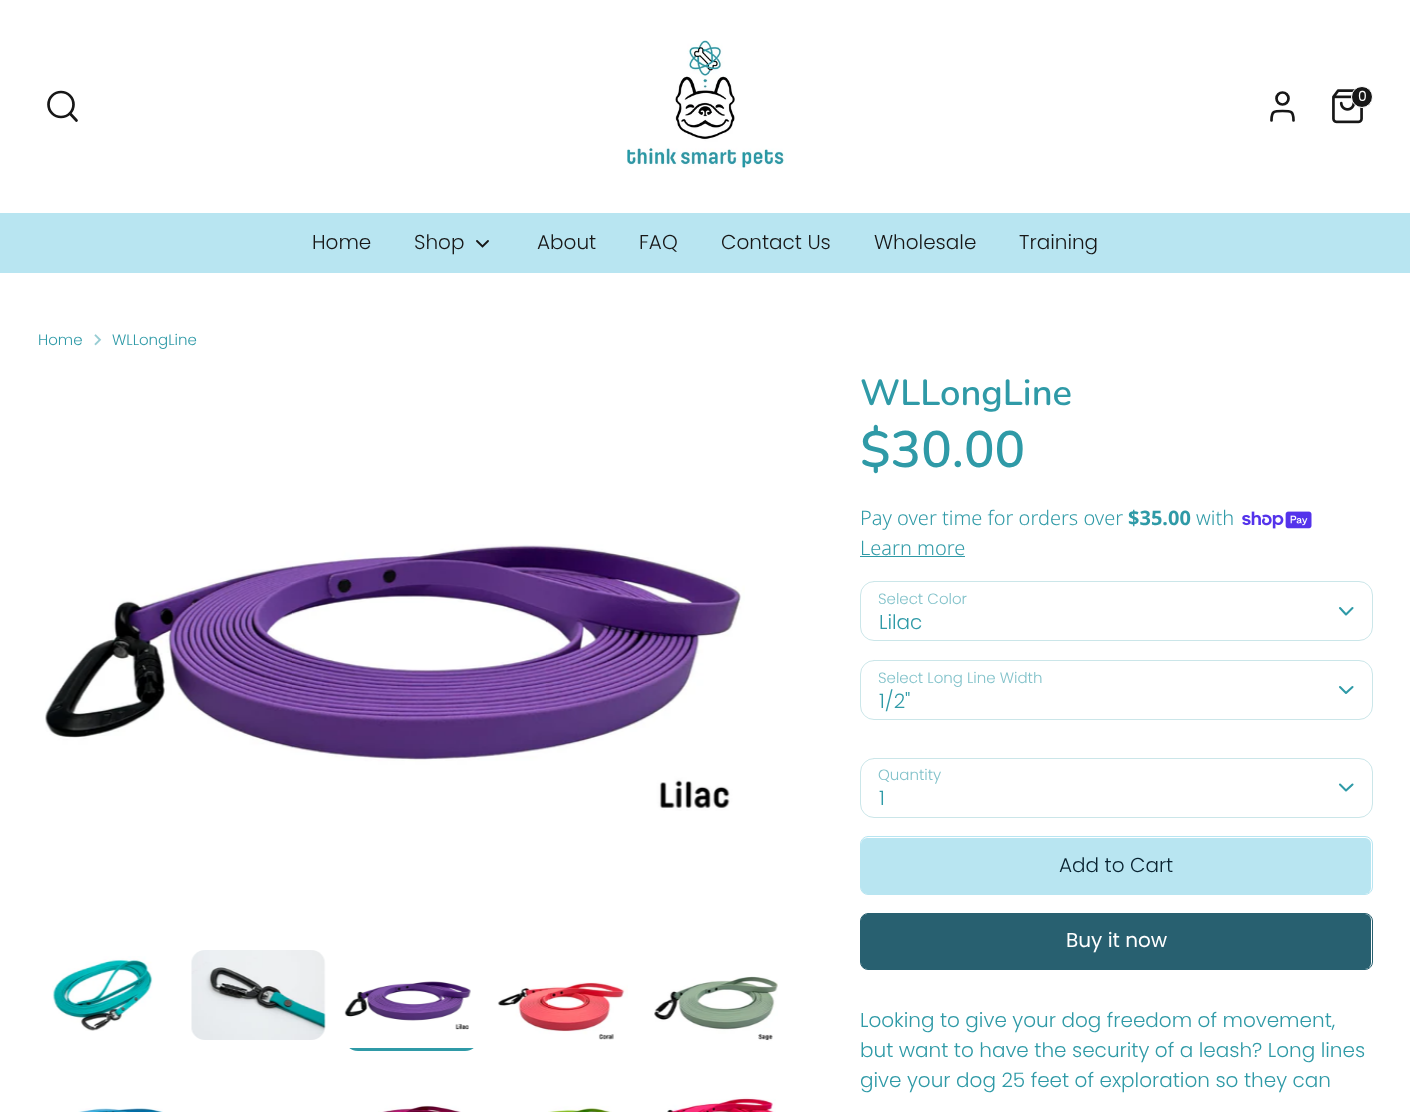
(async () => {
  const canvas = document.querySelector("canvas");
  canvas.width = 1410;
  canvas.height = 1112;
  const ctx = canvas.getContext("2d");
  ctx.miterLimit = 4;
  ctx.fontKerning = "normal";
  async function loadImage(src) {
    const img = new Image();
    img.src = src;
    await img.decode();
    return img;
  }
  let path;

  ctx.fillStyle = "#ffffff";
  ctx.fillRect(0, 0, 1410, 1112);
  ctx.beginPath();
  ctx.arc(61, 104.5, 12.5, 0, Math.PI * 2);
  ctx.strokeStyle = "#171717";
  ctx.lineWidth = 2.7;
  ctx.stroke();
  path = new Path2D("M76.5 120.5L70 113.5");
  ctx.lineCap = "round";
  ctx.lineJoin = "round";
  ctx.stroke(path);
  ctx.drawImage(await loadImage("img/1.png"), 627, 40, 160, 128);
  path = new Path2D("M1293.5 120.5C1293.5 111 1291 111 1282.5 111C1274 111 1271.5 111 1271.5 120.5");
  ctx.stroke(path);
  ctx.beginPath();
  ctx.arc(1282.5, 98.5, 6, 0, Math.PI * 2);
  ctx.stroke();
  ctx.drawImage(await loadImage("img/2.png"), 1332, 89, 31, 35);
  ctx.fillStyle = "#171717";
  ctx.beginPath();
  ctx.arc(1362, 97, 10.5, 0, Math.PI * 2);
  ctx.fill();
  ctx.strokeStyle = "#ffffff";
  ctx.lineWidth = 1;
  ctx.stroke();
  ctx.fillStyle = "#b8e5f1";
  ctx.fillRect(0, 213, 1410, 60);
  path = new Path2D("M477 241L482.5 246.5L488 241");
  ctx.strokeStyle = "#171717";
  ctx.lineWidth = 1.9;
  ctx.lineJoin = "miter";
  ctx.stroke(path);
  ctx.drawImage(await loadImage("img/3.png"), 94, 334, 8, 12);
  ctx.drawImage(await loadImage("img/4.png"), 45, 544, 700, 267);
  ctx.drawImage(await loadImage("img/5.png"), 52, 956, 101, 75);
  ctx.drawImage(await loadImage("img/6.png"), 191, 950, 135, 90);
  ctx.drawImage(await loadImage("img/7.png"), 344, 981, 127, 49);
  ctx.save();
  ctx.beginPath();
  ctx.roundRect(344, 950, 135, 101, 14);
  ctx.clip();
  ctx.fillStyle = "#2f9aa7";
  ctx.fillRect(344, 1048, 135, 3);
  ctx.restore();
  ctx.drawImage(await loadImage("img/8.png"), 497, 982, 131, 58);
  ctx.drawImage(await loadImage("img/9.png"), 654, 976, 124, 65);
  ctx.drawImage(await loadImage("img/10.png"), 78, 1108, 85, 4);
  ctx.drawImage(await loadImage("img/11.png"), 378, 1105, 83, 7);
  ctx.drawImage(await loadImage("img/12.png"), 548, 1106, 64, 6);
  ctx.drawImage(await loadImage("img/13.png"), 667, 1097, 109, 15);
  ctx.drawImage(await loadImage("img/14.png"), 1242, 511, 70, 18);
  ctx.fillStyle = "#2f9aa7";
  ctx.fillRect(860, 556, 105, 1);
  ctx.beginPath();
  ctx.roundRect(860.5, 581.5, 512, 59, 13.5);
  ctx.strokeStyle = "#cbe6e9";
  ctx.lineWidth = 1;
  ctx.stroke();
  path = new Path2D("M1340 608L1346 614.5L1352.5 608");
  ctx.strokeStyle = "#2f9aa7";
  ctx.lineWidth = 2.1;
  ctx.lineJoin = "round";
  ctx.stroke(path);
  ctx.beginPath();
  ctx.roundRect(860.5, 660.5, 512, 59, 13.5);
  ctx.strokeStyle = "#cbe6e9";
  ctx.lineWidth = 1;
  ctx.lineJoin = "miter";
  ctx.stroke();
  path = new Path2D("M1340 687L1346 693L1352.5 687");
  ctx.strokeStyle = "#2f9aa7";
  ctx.lineWidth = 2.1;
  ctx.lineJoin = "round";
  ctx.stroke(path);
  ctx.beginPath();
  ctx.roundRect(860.5, 758.5, 512, 59, 13.5);
  ctx.strokeStyle = "#cbe6e9";
  ctx.lineWidth = 1;
  ctx.lineJoin = "miter";
  ctx.stroke();
  path = new Path2D("M1340 784.5L1346 790.5L1352.5 784.5");
  ctx.strokeStyle = "#2f9aa7";
  ctx.lineWidth = 2.1;
  ctx.lineJoin = "round";
  ctx.stroke(path);
  ctx.beginPath();
  ctx.roundRect(860.5, 836.5, 512, 58, 7.5);
  ctx.strokeStyle = "#b8e5f1";
  ctx.lineWidth = 1;
  ctx.lineJoin = "miter";
  ctx.stroke();
  ctx.fillStyle = "#b8e5f1";
  ctx.beginPath();
  ctx.roundRect(861, 838, 510, 56, 6);
  ctx.fill();
  ctx.beginPath();
  ctx.roundRect(860.5, 913.5, 512, 56, 7.5);
  ctx.strokeStyle = "#286070";
  ctx.stroke();
  ctx.fillStyle = "#286070";
  ctx.beginPath();
  ctx.roundRect(861, 914, 510, 55, 6);
  ctx.fill();
  ctx.font = "14px Poppins";
  ctx.fillStyle = "#ffffff";
  ctx.fillText("0", 1358, 101);
  ctx.font = "300 20px Poppins";
  ctx.fillStyle = "#171717";
  for (const [text, x, y] of [
    ["Home", 312, 249],
    ["Shop", 414, 249],
    ["About", 537, 249],
    ["FAQ", 639, 249],
    ["Contact Us", 721, 249],
    ["Wholesale", 874, 249],
    ["Training", 1019, 249],
  ]) {
    ctx.fillText(text, x, y);
  }
  ctx.font = "300 15px Poppins";
  ctx.fillStyle = "#2f9aa7";
  ctx.fillText("Home", 38, 345);
  ctx.fillText("WLLongLine", 112, 345);
  ctx.font = "600 36.25px Nunito";
  ctx.fillText("WLLongLine", 860, 405);
  ctx.font = "600 51px Nunito";
  ctx.fillText("$30.00", 860, 467);
  ctx.font = "300 20px Noto Sans";
  ctx.fillText("Pay over time for orders over", 860, 525);
  ctx.font = "bold 20px Noto Sans";
  ctx.fillText("$35.00", 1128, 525);
  ctx.font = "300 20px Noto Sans";
  ctx.fillText("with", 1196, 525);
  ctx.fillText("Learn more", 860, 555);
  ctx.font = "300 15px Poppins";
  ctx.fillStyle = "#82c2ca";
  ctx.fillText("Select Color", 878, 604);
  ctx.font = "300 20px Poppins";
  ctx.fillStyle = "#2f9aa7";
  ctx.fillText("Lilac", 879, 629);
  ctx.font = "300 15px Poppins";
  ctx.fillStyle = "#82c2ca";
  ctx.fillText("Select Long Line Width", 878, 683);
  ctx.font = "300 20px Poppins";
  ctx.fillStyle = "#2f9aa7";
  ctx.fillText("1/2\"", 879, 708);
  ctx.font = "300 15px Poppins";
  ctx.fillStyle = "#82c2ca";
  ctx.fillText("Quantity", 878, 780);
  ctx.font = "300 20px Poppins";
  ctx.fillStyle = "#2f9aa7";
  ctx.fillText("1", 879, 805);
  ctx.fillStyle = "#092331";
  ctx.fillText("Add to Cart", 1059, 872);
  ctx.font = "20px Poppins";
  ctx.fillStyle = "#ffffff";
  ctx.fillText("Buy it now", 1066, 947);
  ctx.font = "300 20px Poppins";
  ctx.fillStyle = "#2f9aa7";
  for (const [text, x, y] of [
    ["Looking to give your dog freedom of movement,", 860, 1027],
    ["but want to have the security of a leash? Long lines", 860, 1057],
    ["give your dog 25 feet of exploration so they can", 860, 1087],
  ]) {
    ctx.fillText(text, x, y);
  }
})();
